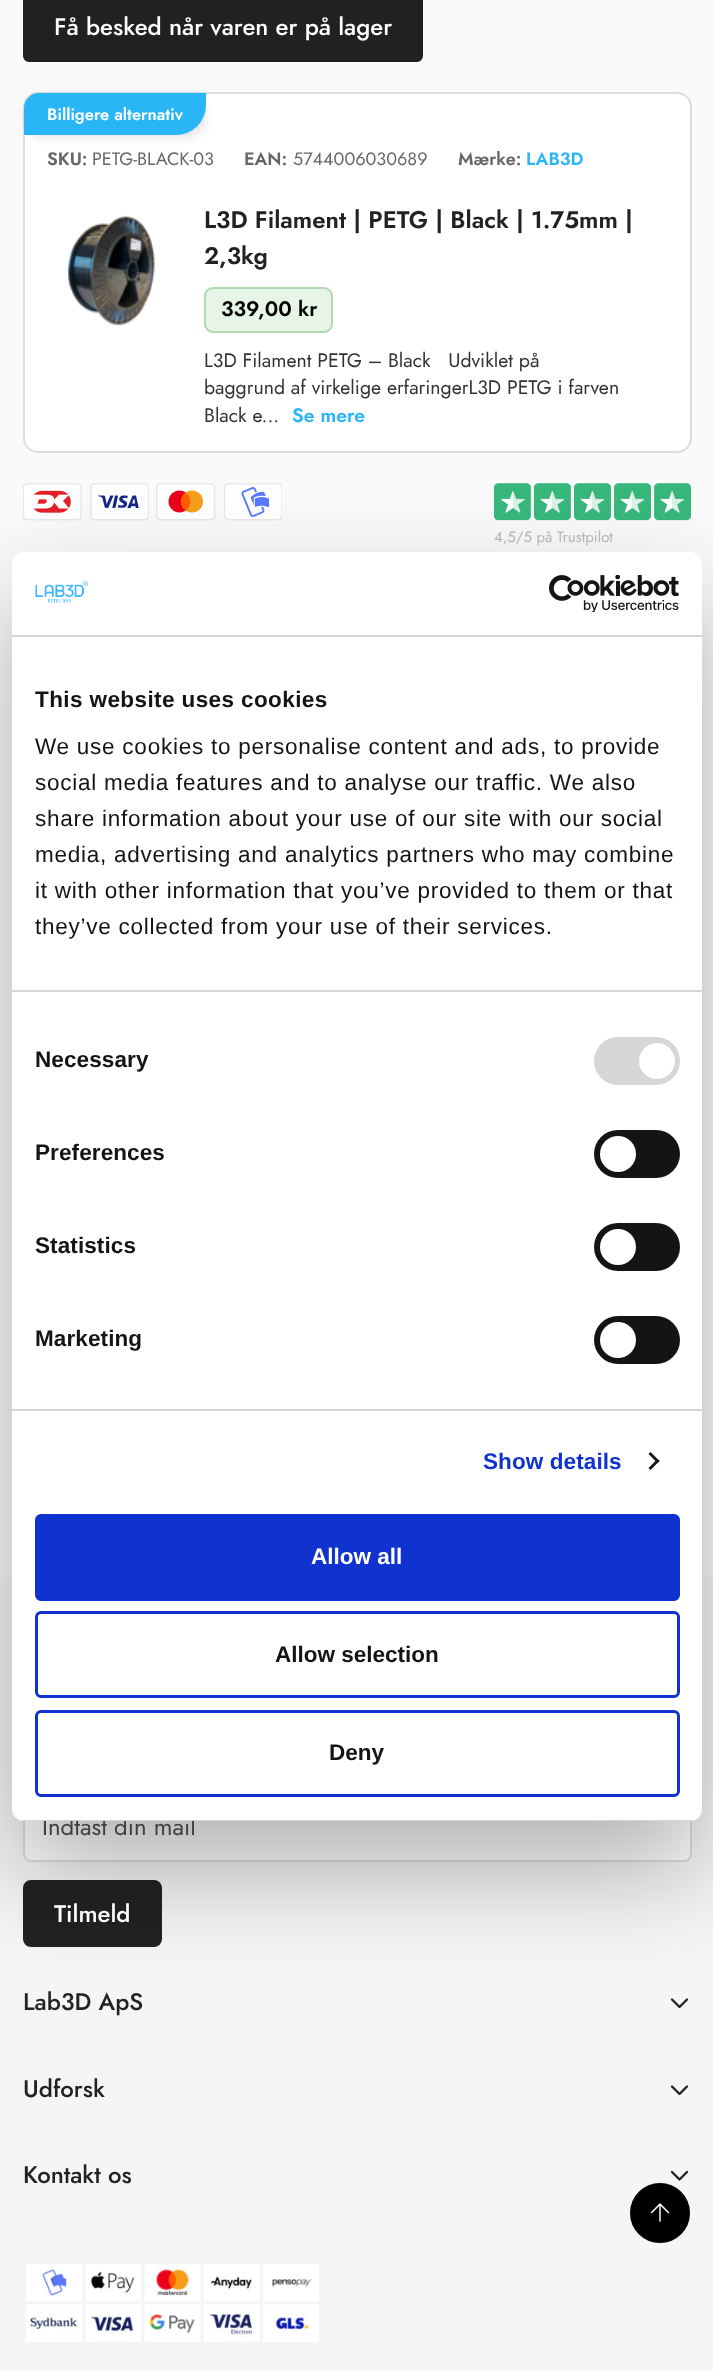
(async () => {
  const canvas = document.querySelector("canvas");
  canvas.width = 713;
  canvas.height = 2371;
  const ctx = canvas.getContext("2d");
  ctx.miterLimit = 4;
  ctx.fontKerning = "normal";
  async function loadImage(src) {
    const img = new Image();
    img.src = src;
    await img.decode();
    return img;
  }
  let path;

  ctx.fillStyle = "#fafafa";
  ctx.fillRect(0, 0, 713, 2371);
  ctx.fillStyle = "#212121";
  ctx.beginPath();
  ctx.roundRect(24, -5, 398, 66, 5);
  ctx.fill();
  ctx.strokeStyle = "#212121";
  ctx.lineWidth = 2;
  ctx.stroke();
  ctx.fillStyle = "#ffffff";
  ctx.beginPath();
  ctx.roundRect(24, 93, 667, 359, 14);
  ctx.fill();
  ctx.strokeStyle = "#dddddd";
  ctx.stroke();
  ctx.fillStyle = "rgba(0, 0, 0, 0.1)";
  ctx.filter = "blur(4.5px)";
  ctx.beginPath();
  ctx.roundRect(24, 96, 182, 42, 30);
  ctx.fill();
  ctx.filter = "none";
  ctx.fillStyle = "#29b6f6";
  ctx.beginPath();
  ctx.roundRect(24, 93, 182, 42, [15, 0, 30, 0]);
  ctx.fill();
  ctx.drawImage(await loadImage("img/1.png"), 67, 215, 88, 111);
  ctx.fillStyle = "#e6f5e6";
  ctx.beginPath();
  ctx.roundRect(205, 288, 127, 44, 8);
  ctx.fill();
  ctx.strokeStyle = "#b2d8b2";
  ctx.stroke();
  ctx.drawImage(await loadImage("img/2.png"), 23, 483, 59, 38);
  ctx.drawImage(await loadImage("img/3.png"), 90, 483, 59, 38);
  ctx.drawImage(await loadImage("img/4.png"), 156, 483, 60, 38);
  ctx.drawImage(await loadImage("img/5.png"), 224, 483, 58, 38);
  ctx.drawImage(await loadImage("img/6.png"), 494, 483, 198, 38);
  ctx.fillStyle = "#f5f5f5";
  ctx.fillRect(0, 1577, 713, 794);
  ctx.fillStyle = "#ffffff";
  ctx.beginPath();
  ctx.roundRect(24, 1794, 667, 67, 7);
  ctx.fill();
  ctx.strokeStyle = "#dedede";
  ctx.stroke();
  ctx.fillStyle = "#222222";
  ctx.beginPath();
  ctx.roundRect(24, 1881, 137, 65, 7);
  ctx.fill();
  ctx.strokeStyle = "#222222";
  ctx.stroke();
  ctx.drawImage(await loadImage("img/9.png"), 670, 1998, 19, 11);
  ctx.fillStyle = "rgba(0, 0, 0, 0.3)";
  ctx.filter = "blur(51px)";
  ctx.beginPath();
  ctx.roundRect(12, 600, 690, 1269, 12);
  ctx.fill();
  ctx.filter = "none";
  ctx.drawImage(await loadImage("img/9.png"), 670, 2085, 19, 11);
  ctx.drawImage(await loadImage("img/10.png"), 670, 2170, 19, 11);
  ctx.drawImage(await loadImage("img/11.png"), 26, 2263, 293, 79);
  ctx.fillStyle = "#000000";
  ctx.beginPath();
  ctx.arc(660, 2213, 29, 0, Math.PI * 2);
  ctx.fill();
  ctx.strokeStyle = "#000000";
  ctx.stroke();
  ctx.drawImage(await loadImage("img/12.png"), 650, 2203, 20, 19);
  ctx.font = "500 24px Jost";
  ctx.fillStyle = "#ffffff";
  ctx.fillText("Få besked når varen er på lager", 54, 35);
  ctx.font = "600 16.5px Jost";
  ctx.fillText("Billigere alternativ", 47, 120);
  ctx.font = "600 18px Jost";
  ctx.fillStyle = "#666666";
  ctx.fillText("SKU:", 47, 165);
  ctx.font = "18px Jost";
  ctx.fillText("PETG-BLACK-03", 92, 165);
  ctx.font = "600 18px Jost";
  ctx.fillText("EAN:", 244, 165);
  ctx.font = "18px Jost";
  ctx.fillText("5744006030689", 293, 165);
  ctx.font = "600 18px Jost";
  ctx.fillText("Mærke:", 458, 165);
  ctx.fillStyle = "#29b6f6";
  ctx.fillText("LAB3D", 526, 165);
  ctx.font = "600 24px Jost";
  ctx.fillStyle = "#222222";
  ctx.fillText("L3D Filament | PETG | Black | 1.75mm |", 204, 228);
  ctx.fillText("2,3kg", 204, 264);
  ctx.font = "600 21px Jost";
  ctx.fillStyle = "#000000";
  ctx.fillText("339,00 kr", 221, 316);
  ctx.font = "19.5px Jost";
  ctx.fillStyle = "#333333";
  for (const [text, x, y] of [
    ["L3D Filament PETG – Black   Udviklet på", 204, 367],
    ["baggrund af virkelige erfaringerL3D PETG i farven", 204, 394],
    ["Black e...", 204, 422],
  ]) {
    ctx.fillText(text, x, y);
  }
  ctx.font = "600 19.5px Jost";
  ctx.fillStyle = "#29b6f6";
  ctx.fillText("Se mere", 292, 422);
  ctx.font = "15px Jost";
  ctx.fillStyle = "#b4b4b4";
  ctx.fillText("4,5/5 på Trustpilot", 494, 542);
  ctx.font = "24px Jost";
  ctx.fillStyle = "#404040";
  ctx.fillText("Indtast din mail", 42, 1835);
  ctx.fillStyle = "#ffffff";
  ctx.beginPath();
  ctx.roundRect(12, 552, 690, 1269, 12);
  ctx.fill();
  ctx.beginPath();
  ctx.roundRect(36.5, 1711.5, 642, 84, 4.5);
  ctx.strokeStyle = "#1032cf";
  ctx.lineWidth = 3;
  ctx.stroke();
  ctx.font = "bold 22.5px Liberation Sans";
  ctx.fillStyle = "#141414";
  ctx.fillText("Deny", 329, 1760);
  ctx.beginPath();
  ctx.roundRect(36.5, 1612.5, 642, 84, 4.5);
  ctx.stroke();
  ctx.fillText("Allow selection", 275, 1662);
  ctx.fillStyle = "#1032cf";
  ctx.beginPath();
  ctx.roundRect(36.5, 1515.5, 642, 84, 4.5);
  ctx.fill();
  ctx.stroke();
  ctx.fillStyle = "#ffffff";
  ctx.fillText("Allow all", 311, 1564);
  ctx.save();
  ctx.beginPath();
  ctx.roundRect(12, 552, 690, 1269, 12);
  ctx.clip();
  ctx.fillStyle = "#d6d6d6";
  ctx.fillRect(12, 1820, 690, 1);
  ctx.restore();
  ctx.fillStyle = "#141414";
  path = new Path2D("M650.5 1452L659.5 1461L657.5 1463L648.5 1454Z");
  ctx.fill(path);
  path = new Path2D("M657.5 1459L659.5 1461L650.5 1470L648.5 1468Z");
  ctx.fill(path);
  ctx.beginPath();
  ctx.roundRect(594, 1316, 86, 48, 24);
  ctx.fill();
  ctx.fillStyle = "#ffffff";
  ctx.beginPath();
  ctx.arc(618, 1340, 18, 0, Math.PI * 2);
  ctx.fill();
  ctx.fillStyle = "#141414";
  ctx.beginPath();
  ctx.roundRect(594, 1223, 86, 48, 24);
  ctx.fill();
  ctx.fillStyle = "#ffffff";
  ctx.beginPath();
  ctx.arc(618, 1247, 18, 0, Math.PI * 2);
  ctx.fill();
  ctx.fillStyle = "#141414";
  ctx.beginPath();
  ctx.roundRect(594, 1130, 86, 48, 24);
  ctx.fill();
  ctx.fillStyle = "#ffffff";
  ctx.beginPath();
  ctx.arc(618, 1154, 18, 0, Math.PI * 2);
  ctx.fill();
  ctx.fillStyle = "#d6d6d6";
  ctx.beginPath();
  ctx.roundRect(594, 1037, 86, 48, 24);
  ctx.fill();
  ctx.fillStyle = "#ffffff";
  ctx.beginPath();
  ctx.arc(657, 1061, 18, 0, Math.PI * 2);
  ctx.fill();
  ctx.letterSpacing = "0.75px";
  ctx.font = "22.5px Liberation Sans";
  ctx.fillStyle = "#141414";
  for (const [text, x, y] of [
    ["they’ve collected from your use of their services.", 35, 934],
    ["it with other information that you’ve provided to them or that", 35, 898],
    ["media, advertising and analytics partners who may combine", 35, 862],
    ["share information about your use of our site with our social", 35, 826],
    ["social media features and to analyse our traffic. We also", 35, 790],
    ["We use cookies to personalise content and ads, to provide", 35, 754],
  ]) {
    ctx.fillText(text, x, y);
  }
  ctx.letterSpacing = "0.4px";
  ctx.font = "bold 22.5px Liberation Sans";
  ctx.fillText("This website uses cookies", 35, 707);
  ctx.fillStyle = "#d6d6d6";
  ctx.fillRect(12, 990, 690, 2);
  ctx.letterSpacing = "0.1px";
  ctx.fillStyle = "#1032cf";
  ctx.fillText("Show details", 483, 1469);
  ctx.fillStyle = "#141414";
  for (const [text, x, y] of [
    ["Marketing", 35, 1346],
    ["Statistics", 35, 1253],
    ["Preferences", 35, 1160],
    ["Necessary", 35, 1067],
  ]) {
    ctx.fillText(text, x, y);
  }
  ctx.fillStyle = "#d6d6d6";
  ctx.fillRect(12, 1409, 690, 2);
  ctx.drawImage(await loadImage("img/8.png"), 549, 575, 130, 37);
  ctx.drawImage(await loadImage("img/7.png"), 35, 580, 54, 23);
  ctx.fillRect(12, 635, 690, 2);
  ctx.letterSpacing = "0px";
  ctx.font = "500 24px Jost";
  ctx.fillStyle = "#ffffff";
  ctx.fillText("Tilmeld", 54, 1922);
  ctx.fillStyle = "#222222";
  for (const [text, x, y] of [
    ["Lab3D ApS", 23, 2010],
    ["Udforsk", 23, 2097],
    ["Kontakt os", 23, 2183],
  ]) {
    ctx.fillText(text, x, y);
  }
})();
